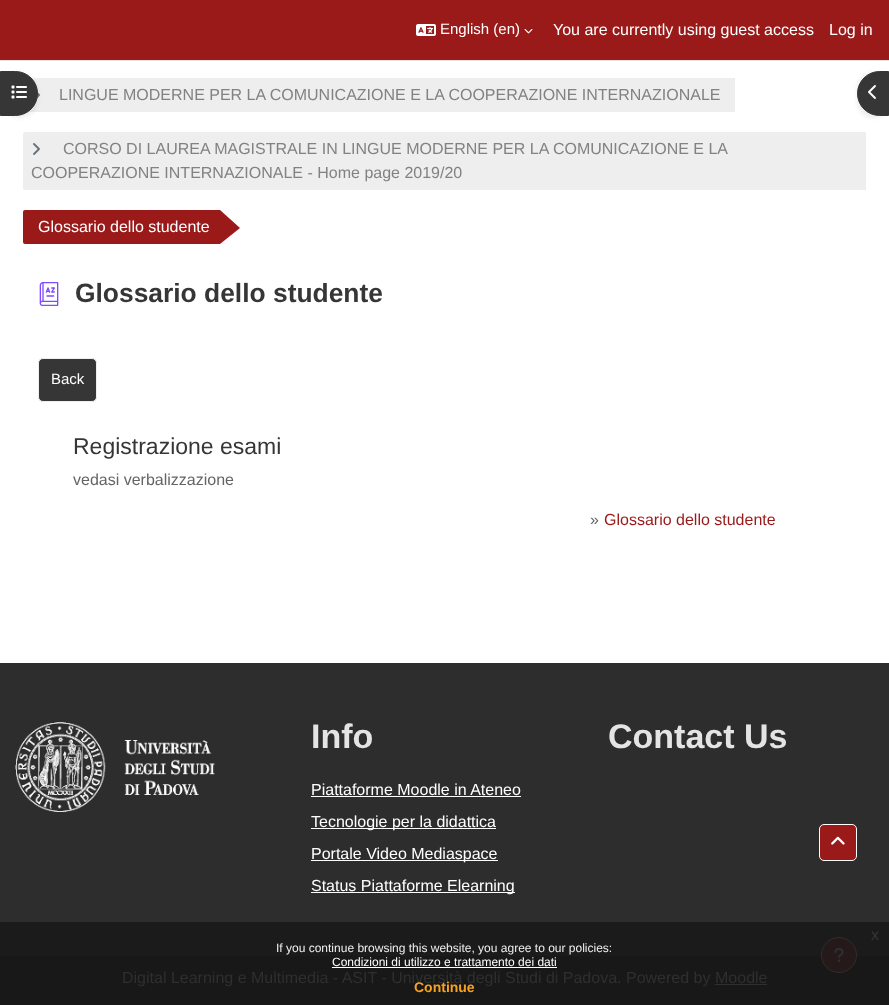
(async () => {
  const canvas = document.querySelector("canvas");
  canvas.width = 889;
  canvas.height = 1005;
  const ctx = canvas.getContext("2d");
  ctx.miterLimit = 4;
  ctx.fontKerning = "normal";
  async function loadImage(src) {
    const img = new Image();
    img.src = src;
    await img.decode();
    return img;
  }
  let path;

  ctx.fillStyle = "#ffffff";
  ctx.fillRect(0, 0, 889, 1005);
  ctx.fillStyle = "#9a1919";
  ctx.fillRect(0, 0, 889, 60);
  ctx.fillStyle = "#e8e3e3";
  ctx.fillRect(0, 60, 889, 1);
  ctx.drawImage(await loadImage("img/1.png"), 416, 24, 20, 12);
  ctx.drawImage(await loadImage("img/2.png"), 524, 29, 9, 5);
  ctx.fillStyle = "#eeeeee";
  ctx.fillRect(28, 78, 707, 34);
  ctx.drawImage(await loadImage("img/5.png"), 37, 91, 3, 8);
  ctx.fillStyle = "rgba(0, 0, 0, 0.07)";
  ctx.filter = "blur(2px)";
  ctx.beginPath();
  ctx.roundRect(0, 73, 38, 45, 23);
  ctx.fill();
  ctx.filter = "none";
  ctx.fillStyle = "#363636";
  ctx.beginPath();
  ctx.roundRect(0.5, 71.5, 37, 44, [0, 22, 22, 0]);
  ctx.fill();
  ctx.strokeStyle = "#363636";
  ctx.stroke();
  ctx.drawImage(await loadImage("img/3.png"), 11, 85, 16, 14);
  ctx.fillStyle = "rgba(0, 0, 0, 0.07)";
  ctx.filter = "blur(2px)";
  ctx.beginPath();
  ctx.roundRect(857, 73, 32, 45, 23);
  ctx.fill();
  ctx.filter = "none";
  ctx.fillStyle = "#363636";
  ctx.beginPath();
  ctx.roundRect(857.5, 71.5, 31, 44, [22, 0, 0, 22]);
  ctx.fill();
  ctx.stroke();
  ctx.drawImage(await loadImage("img/4.png"), 868, 85, 8, 14);
  ctx.fillStyle = "#eeeeee";
  ctx.beginPath();
  ctx.roundRect(23, 132, 843, 58, [2, 0, 0, 2]);
  ctx.fill();
  ctx.drawImage(await loadImage("img/6.png"), 33, 143, 7, 12);
  ctx.fillStyle = "#9a1919";
  ctx.beginPath();
  ctx.roundRect(23, 210, 197, 34, [2, 0, 0, 2]);
  ctx.fill();
  path = new Path2D("M220 244V210L240 228Z");
  ctx.fill(path);
  ctx.drawImage(await loadImage("img/7.png"), 39, 282, 20, 24);
  ctx.fillStyle = "#363636";
  ctx.beginPath();
  ctx.roundRect(38.5, 358.5, 58, 43, 4.5);
  ctx.fill();
  ctx.strokeStyle = "#eeeeee";
  ctx.stroke();
  ctx.fillStyle = "#2d2d2d";
  ctx.fillRect(0, 663, 889, 259);
  ctx.fillStyle = "#1b1b1b";
  ctx.fillRect(0, 922, 889, 34);
  ctx.drawImage(await loadImage("img/8.png"), 15, 722, 200, 90);
  for (const [x, y, w, h, color] of [
    [311, 796, 210, 1, "#ffffff"],
    [311, 828, 185, 1, "#ffffff"],
    [311, 860, 187, 1, "#ffffff"],
    [311, 892, 204, 1, "#ffffff"],
    [0, 956, 889, 49, "#181818"],
  ]) {
    ctx.fillStyle = color;
    ctx.fillRect(x, y, w, h);
  }
  ctx.fillStyle = "#261919";
  ctx.beginPath();
  ctx.arc(839, 955, 17.5, 0, Math.PI * 2);
  ctx.fill();
  ctx.strokeStyle = "#2e2e2e";
  ctx.stroke();
  ctx.drawImage(await loadImage("img/9.png"), 834, 948, 10, 14);
  ctx.fillStyle = "#303030";
  ctx.fillRect(715, 984, 52, 1);
  ctx.fillStyle = "#9a1919";
  ctx.beginPath();
  ctx.roundRect(819.5, 824.5, 37, 36, 4.5);
  ctx.fill();
  ctx.strokeStyle = "#ffffff";
  ctx.stroke();
  ctx.drawImage(await loadImage("img/10.png"), 831, 836, 14, 9);
  ctx.fillStyle = "#ffffff";
  ctx.fillRect(332, 967, 225, 1);
  ctx.font = "15px Liberation Sans";
  ctx.fillText("English (en)", 440, 34);
  ctx.font = "16px Liberation Sans";
  ctx.fillText("You are currently using guest access", 553, 35);
  ctx.fillText("Log in", 829, 35);
  ctx.fillStyle = "#828282";
  for (const [text, x, y] of [
    ["LINGUE MODERNE PER LA COMUNICAZIONE E LA COOPERAZIONE INTERNAZIONALE", 59, 100],
    ["CORSO DI LAUREA MAGISTRALE IN LINGUE MODERNE PER LA COMUNICAZIONE E LA", 63, 154],
    ["COOPERAZIONE INTERNAZIONALE - Home page 2019/20", 31, 178],
  ]) {
    ctx.fillText(text, x, y);
  }
  ctx.fillStyle = "#ffffff";
  ctx.fillText("Glossario dello studente", 38, 232);
  ctx.font = "bold 26.4px Liberation Sans";
  ctx.fillStyle = "#363636";
  ctx.fillText("Glossario dello studente", 75, 302);
  ctx.font = "15px Liberation Sans";
  ctx.fillStyle = "#ffffff";
  ctx.fillText("Back", 51, 384);
  ctx.font = "23px Liberation Sans";
  ctx.fillStyle = "#363636";
  ctx.fillText("Registrazione esami", 73, 454);
  ctx.font = "16px Liberation Sans";
  ctx.fillStyle = "#656565";
  ctx.fillText("vedasi verbalizzazione", 73, 485);
  ctx.fillText("»", 590, 525);
  ctx.fillStyle = "#9a1919";
  ctx.fillText("Glossario dello studente", 604, 525);
  ctx.font = "bold 34px Liberation Sans";
  ctx.fillStyle = "#e4e4e4";
  ctx.fillText("Info", 311, 748);
  ctx.font = "16px Liberation Sans";
  ctx.fillStyle = "#ffffff";
  for (const [text, x, y] of [
    ["Piattaforme Moodle in Ateneo", 311, 795],
    ["Tecnologie per la didattica", 311, 827],
    ["Portale Video Mediaspace", 311, 859],
    ["Status Piattaforme Elearning", 311, 891],
  ]) {
    ctx.fillText(text, x, y);
  }
  ctx.font = "bold 34px Liberation Sans";
  ctx.fillStyle = "#e4e4e4";
  ctx.fillText("Contact Us", 608, 748);
  ctx.font = "16px Liberation Sans";
  ctx.fillStyle = "#2f2f2f";
  ctx.fillText("Digital Learning e Multimedia - ASIT - Università degli Studi di Padova. Powered by", 122, 983);
  ctx.fillText("Moodle", 715, 983);
  ctx.fillStyle = "#363636";
  ctx.fillText("x", 871, 940);
  ctx.font = "12px Liberation Sans";
  ctx.fillStyle = "#efefef";
  ctx.fillText("If you continue browsing this website, you agree to our policies:", 276, 952);
  ctx.fillStyle = "#ffffff";
  ctx.fillText("Condizioni di utilizzo e trattamento dei dati", 332, 966);
  ctx.font = "bold 14px Liberation Sans";
  ctx.fillStyle = "#f6a21d";
  ctx.fillText("Continue", 414, 992);
})();
